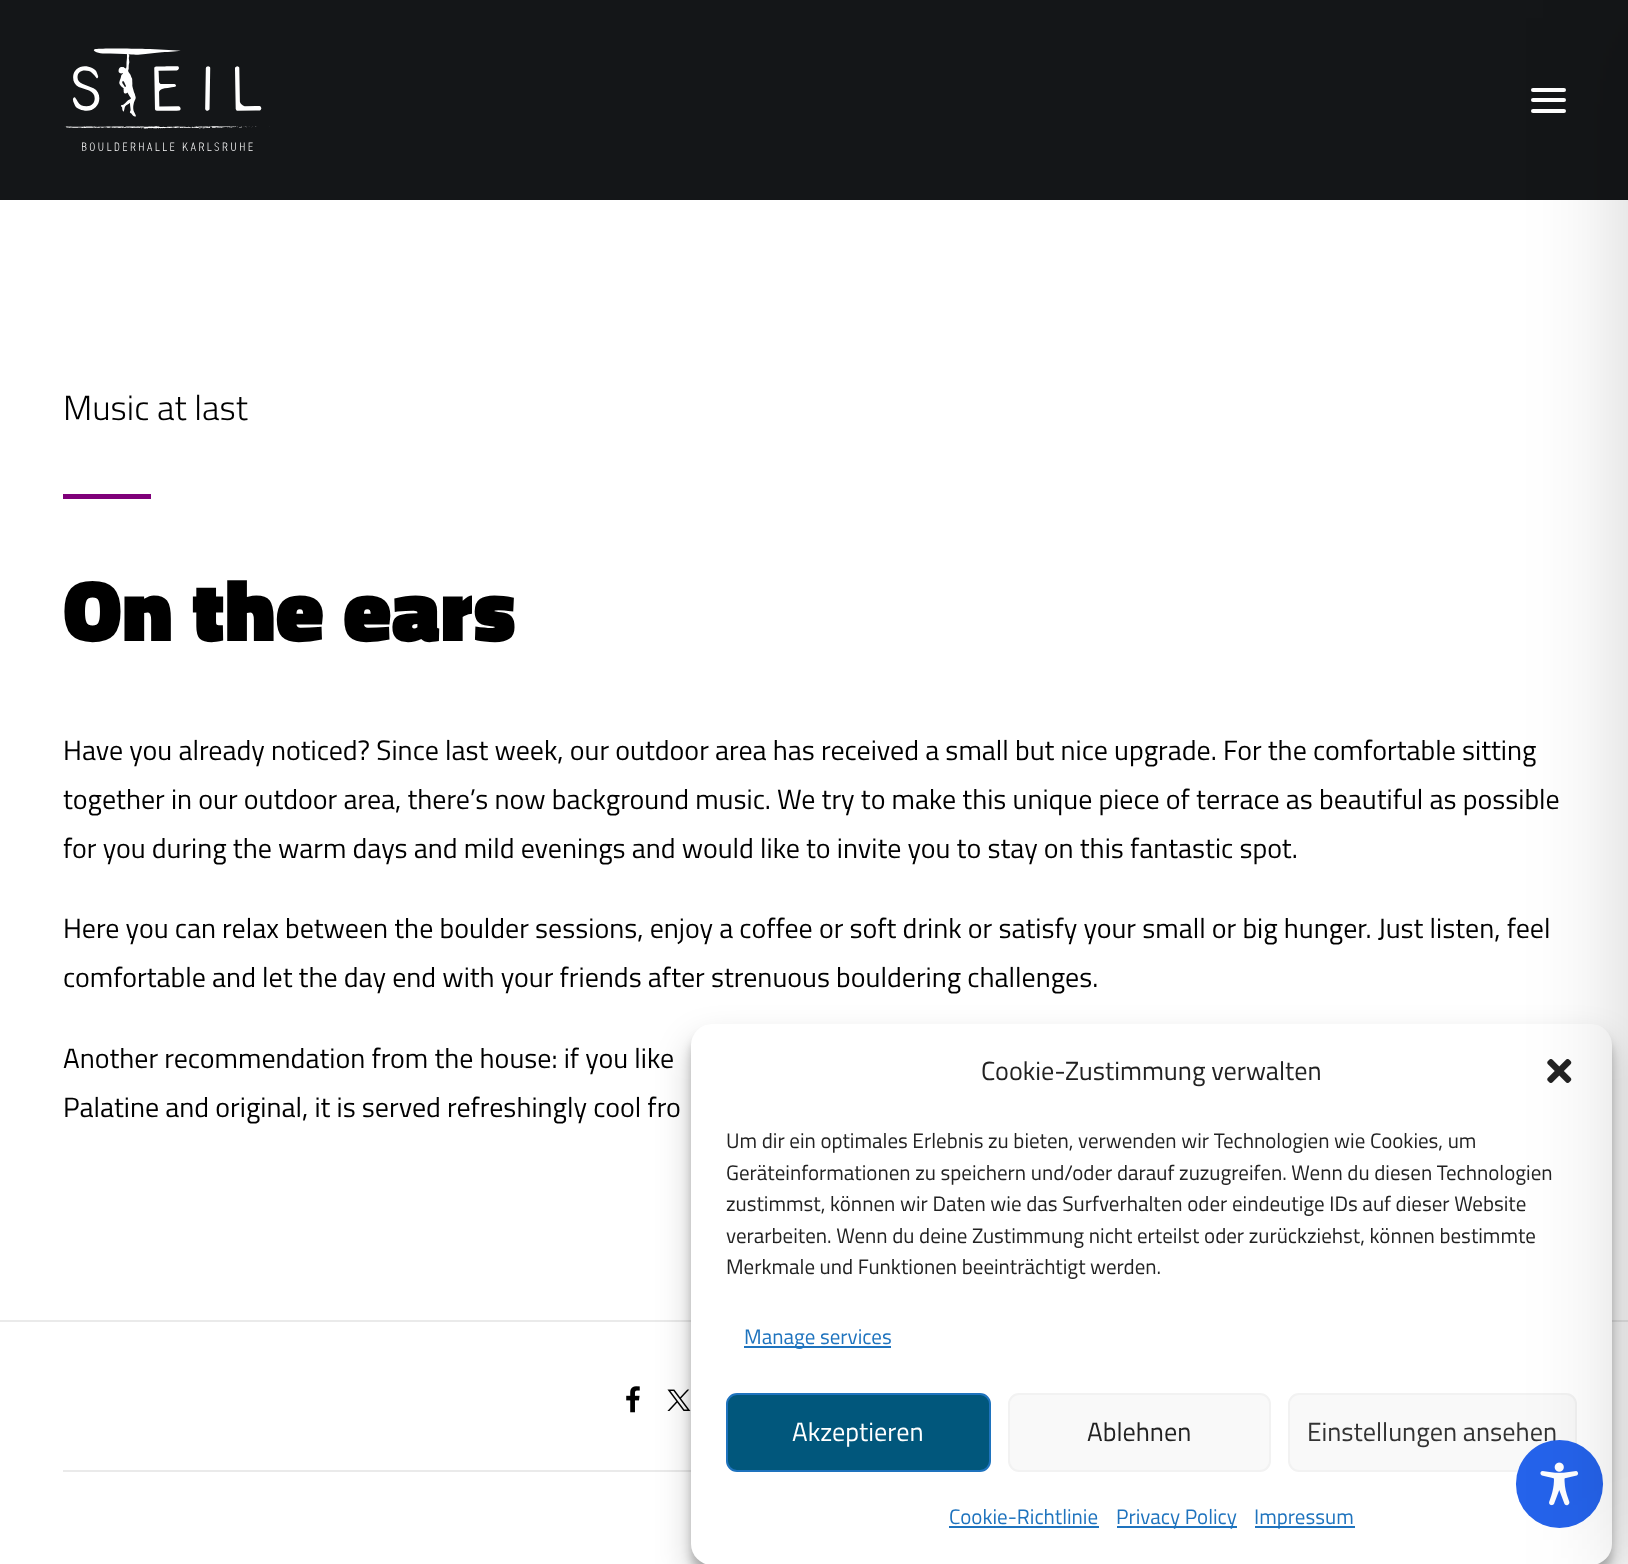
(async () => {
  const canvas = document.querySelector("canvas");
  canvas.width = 1628;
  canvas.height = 1564;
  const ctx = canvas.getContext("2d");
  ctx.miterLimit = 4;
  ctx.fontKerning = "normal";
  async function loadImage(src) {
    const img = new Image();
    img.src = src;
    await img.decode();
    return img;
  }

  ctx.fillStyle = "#ffffff";
  ctx.fillRect(0, 0, 1628, 1564);
  ctx.fillStyle = "#141618";
  ctx.fillRect(0, 0, 1628, 200);
  ctx.drawImage(await loadImage("img/1.png"), 64, 48, 206, 103);
  ctx.fillStyle = "#ffffff";
  ctx.beginPath();
  ctx.roundRect(1531, 98, 35, 4, 2);
  ctx.fill();
  ctx.beginPath();
  ctx.roundRect(1531, 88, 35, 4, 2);
  ctx.fill();
  ctx.beginPath();
  ctx.roundRect(1531, 109, 35, 4, 2);
  ctx.fill();
  for (const [x, y, w, h, color] of [
    [63, 494, 88, 5, "#7f0079"],
    [0, 1320, 1628, 2, "#eaeaea"],
    [63, 1470, 628, 2, "#eaeaea"],
  ]) {
    ctx.fillStyle = color;
    ctx.fillRect(x, y, w, h);
  }
  ctx.drawImage(await loadImage("img/2.png"), 626, 1386, 14, 27);
  ctx.drawImage(await loadImage("img/3.png"), 667, 1389, 24, 22);
  ctx.fillStyle = "rgba(0, 0, 0, 0.23)";
  ctx.filter = "blur(5px)";
  ctx.beginPath();
  ctx.roundRect(691, 1034, 921, 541, 21);
  ctx.fill();
  ctx.filter = "none";
  ctx.fillStyle = "rgba(0, 0, 0, 0.19)";
  ctx.filter = "blur(17.5px)";
  ctx.beginPath();
  ctx.roundRect(691, 1041, 921, 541, 21);
  ctx.fill();
  ctx.filter = "none";
  ctx.fillStyle = "#ffffff";
  ctx.beginPath();
  ctx.roundRect(691, 1024, 921, 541, 21);
  ctx.fill();
  ctx.drawImage(await loadImage("img/4.png"), 1547, 1059, 25, 24);
  ctx.fillStyle = "#1e73be";
  ctx.fillRect(744, 1346, 147, 2);
  ctx.fillStyle = "#01577c";
  ctx.beginPath();
  ctx.roundRect(727, 1394, 263, 77, 10);
  ctx.fill();
  ctx.strokeStyle = "#1e73be";
  ctx.lineWidth = 2;
  ctx.stroke();
  ctx.fillStyle = "#f9f9f9";
  ctx.beginPath();
  ctx.roundRect(1009, 1394, 261, 77, 10);
  ctx.fill();
  ctx.strokeStyle = "#f2f2f2";
  ctx.stroke();
  ctx.beginPath();
  ctx.roundRect(1289, 1394, 287, 77, 10);
  ctx.fill();
  ctx.stroke();
  for (const [x, y, w, h, color] of [
    [949, 1526, 150, 2, "#1e73be"],
    [1117, 1526, 120, 2, "#1e73be"],
    [1255, 1526, 100, 2, "#1e73be"],
  ]) {
    ctx.fillStyle = color;
    ctx.fillRect(x, y, w, h);
  }
  ctx.font = "300 35px Titillium Web";
  ctx.fillStyle = "#000000";
  ctx.fillText("Music at last", 63, 420);
  ctx.font = "900 88px Titillium Web";
  for (const [text, x, y] of [
    ["On", 63, 641],
    ["the", 192, 641],
    ["ears", 343, 641],
  ]) {
    ctx.fillText(text, x, y);
  }
  ctx.font = "28px Titillium Web";
  for (const [text, x, y] of [
    ["Have you already noticed? Since last week, our outdoor area has received a small but nice upgrade. For the comfortable sitting", 63, 760],
    ["together in our outdoor area, there’s now background music. We try to make this unique piece of terrace as beautiful as possible", 63, 809],
    ["for you during the warm days and mild evenings and would like to invite you to stay on this fantastic spot.", 63, 858],
    ["Here you can relax between the boulder sessions, enjoy a coffee or soft drink or satisfy your small or big hunger. Just listen, feel", 63, 938],
    ["comfortable and let the day end with your friends after strenuous bouldering challenges.", 63, 987],
    ["Another recommendation from the house: if you like", 63, 1068],
    ["Palatine and original, it is served refreshingly cool fro", 63, 1117],
  ]) {
    ctx.fillText(text, x, y);
  }
  ctx.font = "26.25px Titillium Web";
  ctx.fillStyle = "#222222";
  ctx.fillText("Cookie-Zustimmung verwalten", 981, 1080);
  ctx.font = "21px Titillium Web";
  for (const [text, x, y] of [
    ["Um dir ein optimales Erlebnis zu bieten, verwenden wir Technologien wie Cookies, um", 726, 1148],
    ["Geräteinformationen zu speichern und/oder darauf zuzugreifen. Wenn du diesen Technologien", 726, 1180],
    ["zustimmst, können wir Daten wie das Surfverhalten oder eindeutige IDs auf dieser Website", 726, 1211],
    ["verarbeiten. Wenn du deine Zustimmung nicht erteilst oder zurückziehst, können bestimmte", 726, 1243],
    ["Merkmale und Funktionen beeinträchtigt werden.", 726, 1274],
  ]) {
    ctx.fillText(text, x, y);
  }
  ctx.fillStyle = "#1e73be";
  ctx.fillText("Manage services", 744, 1344);
  ctx.font = "26.25px Titillium Web";
  ctx.fillStyle = "#ffffff";
  ctx.fillText("Akzeptieren", 792, 1441);
  ctx.fillStyle = "#222222";
  ctx.fillText("Ablehnen", 1087, 1441);
  ctx.fillStyle = "#333333";
  ctx.fillText("Einstellungen ansehen", 1307, 1441);
  ctx.font = "21px Titillium Web";
  ctx.fillStyle = "#1e73be";
  for (const [text, x, y] of [
    ["Cookie-Richtlinie", 949, 1524],
    ["Privacy Policy", 1116, 1524],
    ["Impressum", 1254, 1524],
  ]) {
    ctx.fillText(text, x, y);
  }
  ctx.fillStyle = "#2563eb";
  ctx.beginPath();
  ctx.roundRect(1516, 1440, 87, 88, 43.5);
  ctx.fill();
  ctx.drawImage(await loadImage("img/5.png"), 1540, 1462, 39, 44);
  ctx.fillStyle = "rgba(0, 0, 0, 0.2)";
  ctx.filter = "blur(52.5px)";
  ctx.beginPath();
  ctx.rect(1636, 18, 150, 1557);
  ctx.fill();
  ctx.filter = "none";
})();
